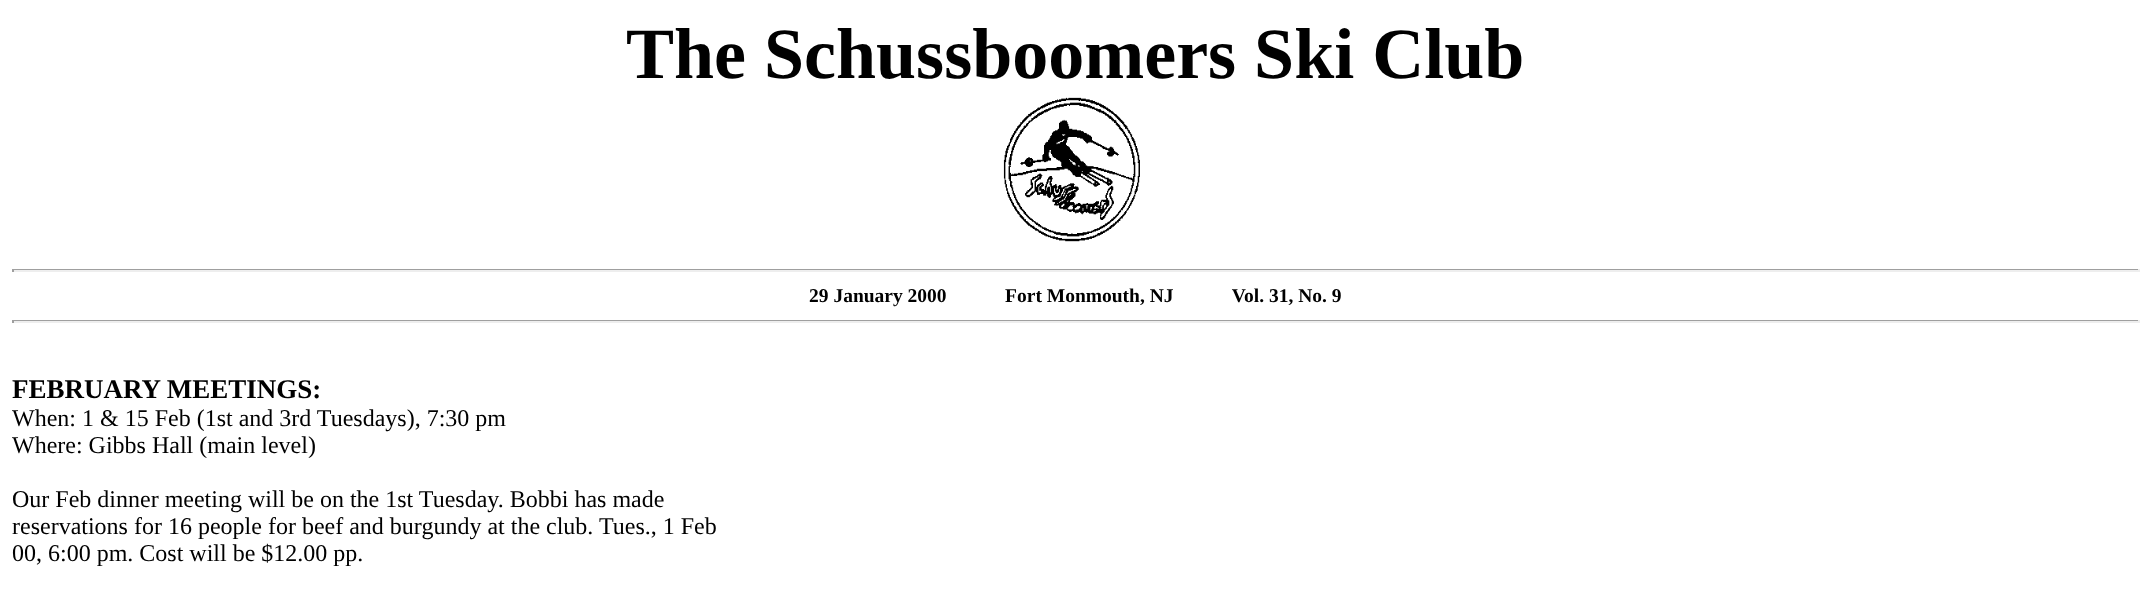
(async () => {
  const canvas = document.querySelector("canvas");
  canvas.width = 2150;
  canvas.height = 597;
  const ctx = canvas.getContext("2d");
  ctx.miterLimit = 4;
  ctx.fontKerning = "normal";
  async function loadImage(src) {
    const img = new Image();
    img.src = src;
    await img.decode();
    return img;
  }

  ctx.fillStyle = "#ffffff";
  ctx.fillRect(0, 0, 2150, 597);
  ctx.drawImage(await loadImage("img/1.png"), 1003, 97, 137, 145);
  for (const [x, y, w, h, color] of [
    [12, 269, 2127, 1, "#9f9f9f"],
    [2138, 269, 2, 3, "#eeeeee"],
    [12, 270, 2127, 2, "#eeeeee"],
    [12, 269, 2, 3, "#9f9f9f"],
    [12, 320, 2127, 1, "#9f9f9f"],
    [2138, 320, 2, 3, "#eeeeee"],
    [12, 321, 2127, 2, "#eeeeee"],
    [12, 320, 2, 3, "#9f9f9f"],
  ]) {
    ctx.fillStyle = color;
    ctx.fillRect(x, y, w, h);
  }
  ctx.font = "bold 72px Liberation Serif";
  ctx.fillStyle = "#000000";
  ctx.fillText("The Schussboomers Ski Club", 626, 78);
  ctx.font = "bold 19.5px Liberation Serif";
  ctx.fillText("29 January 2000            Fort Monmouth, NJ            Vol. 31, No. 9", 809, 302);
  ctx.font = "bold 27px Liberation Serif";
  ctx.fillText("FEBRUARY MEETINGS:", 12, 398);
  ctx.font = "24px Liberation Serif";
  for (const [text, x, y] of [
    ["When: 1 & 15 Feb (1st and 3rd Tuesdays), 7:30 pm", 12, 426],
    ["Where: Gibbs Hall (main level)", 12, 453],
    ["Our Feb dinner meeting will be on the 1st Tuesday. Bobbi has made", 12, 507],
    ["reservations for 16 people for beef and burgundy at the club. Tues., 1 Feb", 12, 534],
    ["00, 6:00 pm. Cost will be $12.00 pp.", 12, 561],
  ]) {
    ctx.fillText(text, x, y);
  }
})();
